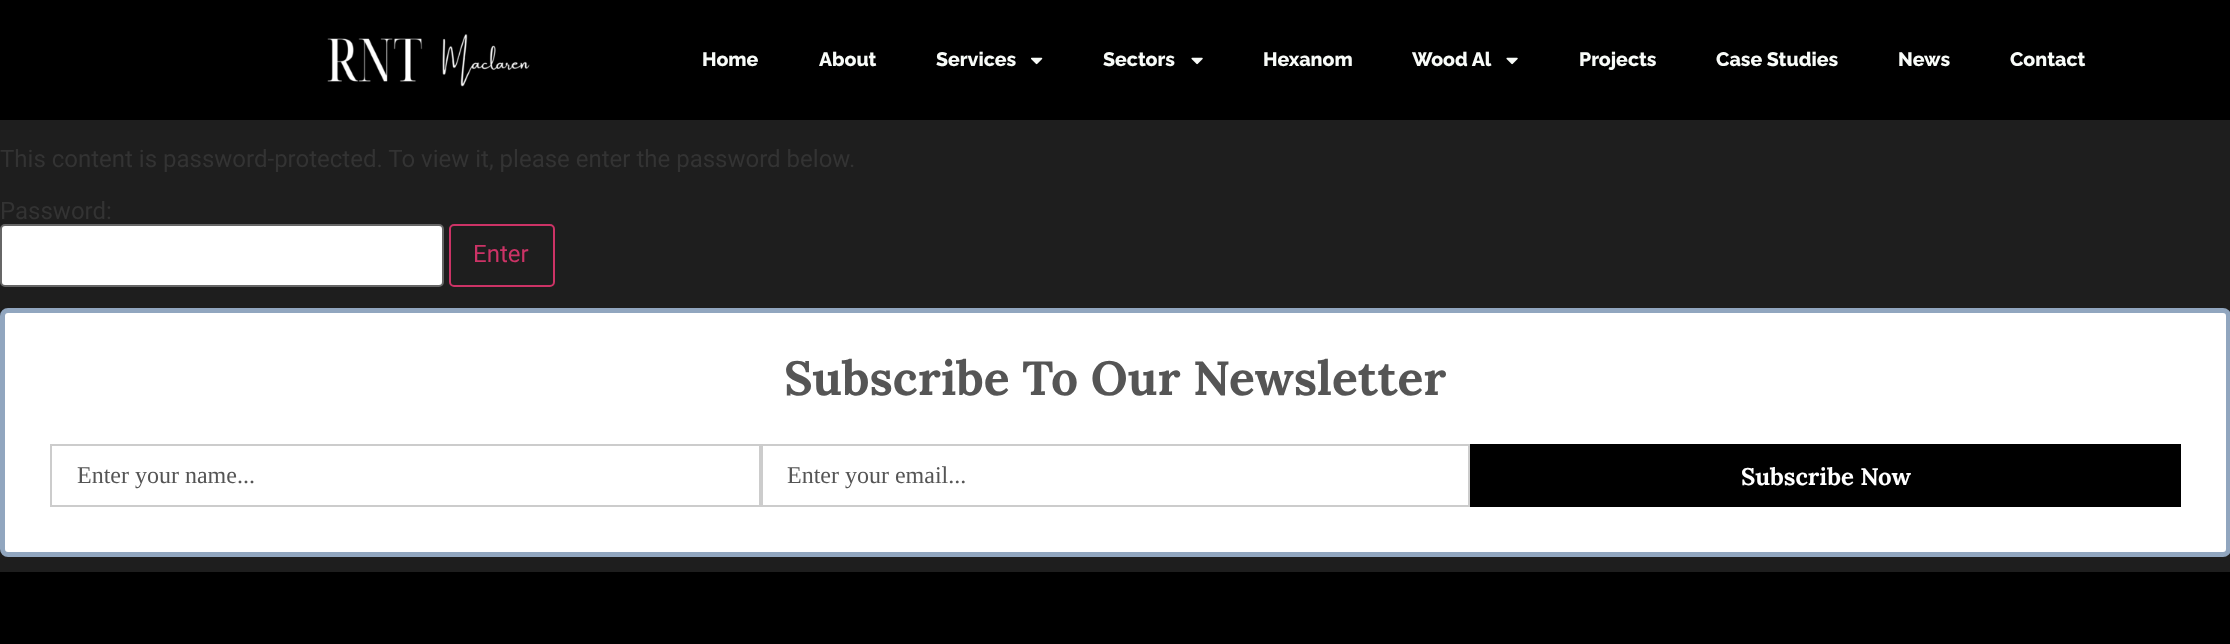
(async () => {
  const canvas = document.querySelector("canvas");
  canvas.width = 2230;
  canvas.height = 644;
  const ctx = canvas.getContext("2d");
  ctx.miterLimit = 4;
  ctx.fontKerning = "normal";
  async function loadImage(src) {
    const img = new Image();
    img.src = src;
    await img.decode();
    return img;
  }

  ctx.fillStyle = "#1e1e1e";
  ctx.fillRect(0, 0, 2230, 644);
  ctx.fillStyle = "#000000";
  ctx.fillRect(0, 0, 2230, 120);
  ctx.drawImage(await loadImage("img/1.png"), 327, 34, 203, 53);
  ctx.drawImage(await loadImage("img/2.png"), 1031, 57, 12, 8);
  ctx.drawImage(await loadImage("img/3.png"), 1191, 57, 12, 8);
  ctx.drawImage(await loadImage("img/3.png"), 1506, 57, 12, 8);
  ctx.fillStyle = "#ffffff";
  ctx.beginPath();
  ctx.roundRect(1, 225, 442, 61, 4);
  ctx.fill();
  ctx.strokeStyle = "#666666";
  ctx.lineWidth = 2;
  ctx.stroke();
  ctx.beginPath();
  ctx.roundRect(450, 225, 104, 61, 4);
  ctx.strokeStyle = "#cc3366";
  ctx.stroke();
  ctx.beginPath();
  ctx.roundRect(2.5, 310.5, 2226, 244, 5.5);
  ctx.fill();
  ctx.strokeStyle = "#91a6bf";
  ctx.lineWidth = 5;
  ctx.stroke();
  ctx.strokeStyle = "#cccccc";
  ctx.lineWidth = 2;
  ctx.strokeRect(51, 445, 709, 61);
  ctx.strokeRect(762, 445, 707, 61);
  ctx.fillStyle = "#000000";
  ctx.fillRect(1470, 444, 711, 63);
  ctx.fillRect(0, 572, 2230, 72);
  ctx.font = "800 19.5px Raleway";
  ctx.fillStyle = "#f8fbf8";
  for (const [text, x, y] of [
    ["Home", 702, 66],
    ["About", 819, 66],
    ["Services", 936, 66],
    ["Sectors", 1103, 66],
    ["Hexanom", 1263, 66],
    ["Wood Al", 1412, 66],
    ["Projects", 1579, 66],
    ["Case Studies", 1716, 66],
    ["News", 1898, 66],
    ["Contact", 2010, 66],
  ]) {
    ctx.fillText(text, x, y);
  }
  ctx.font = "24px Roboto";
  ctx.fillStyle = "#333333";
  ctx.fillText("This content is password-protected. To view it, please enter the password below.", 0, 167);
  ctx.fillText("Password:", 0, 219);
  ctx.fillStyle = "#cc3366";
  ctx.fillText("Enter", 473, 262);
  ctx.font = "bold 48px Lora";
  ctx.fillStyle = "#555555";
  ctx.fillText("Subscribe To Our Newsletter", 784, 395);
  ctx.font = "24px Liberation Serif";
  ctx.fillText("Enter your name...", 77, 483);
  ctx.fillText("Enter your email...", 787, 483);
  ctx.font = "bold 24px Lora";
  ctx.fillStyle = "#ffffff";
  ctx.fillText("Subscribe Now", 1741, 485);
})();
